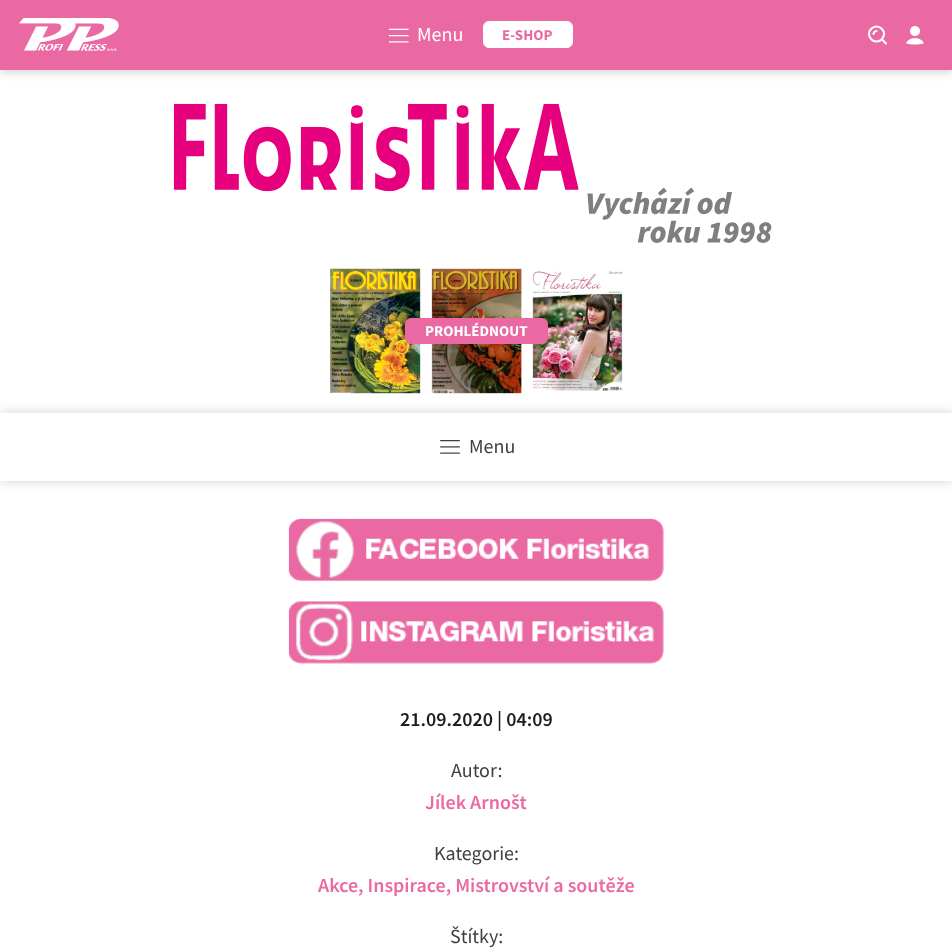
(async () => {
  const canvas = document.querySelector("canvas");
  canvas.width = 952;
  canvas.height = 952;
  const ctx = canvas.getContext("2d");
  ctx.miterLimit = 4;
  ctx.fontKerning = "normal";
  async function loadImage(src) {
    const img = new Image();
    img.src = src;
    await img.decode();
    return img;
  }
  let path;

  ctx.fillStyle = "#ffffff";
  ctx.fillRect(0, 0, 952, 952);
  ctx.fillStyle = "rgba(0, 0, 0, 0.25)";
  ctx.filter = "blur(6px)";
  ctx.beginPath();
  ctx.rect(0, 0, 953, 70);
  ctx.fill();
  ctx.filter = "none";
  ctx.fillStyle = "#eb69a3";
  ctx.fillRect(0, 0, 952, 70);
  ctx.drawImage(await loadImage("img/1.png"), 19, 18, 100, 33);
  ctx.drawImage(await loadImage("img/2.png"), 388, 28, 21, 15);
  ctx.fillStyle = "#ffffff";
  ctx.beginPath();
  ctx.roundRect(483.5, 21.5, 89, 26, 5.5);
  ctx.fill();
  ctx.strokeStyle = "#ffffff";
  ctx.stroke();
  ctx.beginPath();
  ctx.arc(876.5, 34, 7.5, 0, Math.PI * 2);
  ctx.lineWidth = 2.1;
  ctx.stroke();
  path = new Path2D("M876.5 31C875 31 873.5 32.5 873.5 34M886 43.5L882.5 40");
  ctx.lineCap = "round";
  ctx.stroke(path);
  ctx.drawImage(await loadImage("img/3.png"), 906, 26, 18, 19);
  ctx.drawImage(await loadImage("img/4.png"), 173, 103, 599, 140);
  ctx.drawImage(await loadImage("img/5.png"), 330, 268, 293, 126);
  ctx.fillStyle = "rgba(0, 0, 0, 0.15)";
  ctx.filter = "blur(6px)";
  ctx.beginPath();
  ctx.rect(411, 324, 130, 14);
  ctx.fill();
  ctx.filter = "none";
  ctx.fillStyle = "#eb69a3";
  ctx.beginPath();
  ctx.roundRect(405, 318, 143, 26, 6);
  ctx.fill();
  ctx.save();
  path = new Path2D("M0 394H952V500H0ZM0 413H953V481H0Z");
  ctx.clip(path, "evenodd");
  ctx.fillStyle = "rgba(29, 29, 27, 0.2)";
  ctx.filter = "blur(6px)";
  ctx.beginPath();
  ctx.rect(0, 413, 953, 68);
  ctx.fill();
  ctx.filter = "none";
  ctx.restore();
  ctx.drawImage(await loadImage("img/6.png"), 440, 440, 20, 14);
  ctx.drawImage(await loadImage("img/7.png"), 288, 518, 376, 64);
  ctx.drawImage(await loadImage("img/8.png"), 288, 601, 376, 63);
  ctx.font = "20px Source Sans Pro";
  ctx.fillStyle = "#ffffff";
  ctx.fillText("Menu", 417, 41);
  ctx.font = "bold 15px Source Sans Pro";
  ctx.fillStyle = "#eb69a3";
  ctx.fillText("E-SHOP", 502, 40);
  ctx.fillStyle = "#ffffff";
  ctx.fillText("PROHLÉDNOUT", 425, 336);
  ctx.font = "20px Source Sans Pro";
  ctx.fillStyle = "#404040";
  ctx.fillText("Menu", 469, 453);
  ctx.font = "600 20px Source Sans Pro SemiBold";
  ctx.fillStyle = "#1d1d1b";
  ctx.fillText("21.09.2020 | 04:09", 400, 726);
  ctx.font = "20px Source Sans Pro";
  ctx.fillStyle = "#404040";
  ctx.fillText("Autor:", 451, 777);
  ctx.font = "600 20px Source Sans Pro SemiBold";
  ctx.fillStyle = "#eb69a3";
  ctx.fillText("Jílek Arnošt", 425, 809);
  ctx.font = "20px Source Sans Pro";
  ctx.fillStyle = "#404040";
  ctx.fillText("Kategorie:", 434, 860);
  ctx.font = "600 20px Source Sans Pro SemiBold";
  ctx.fillStyle = "#eb69a3";
  ctx.fillText("Akce, Inspirace, Mistrovství a soutěže", 318, 892);
  ctx.font = "20px Source Sans Pro";
  ctx.fillStyle = "#404040";
  ctx.fillText("Štítky:", 450, 943);
})();
